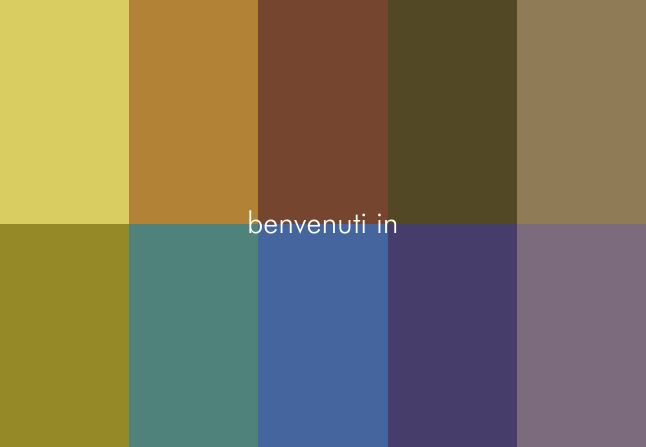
import math
import cairo

surface = cairo.ImageSurface(cairo.FORMAT_RGB24, 646, 447)
c = cairo.Context(surface)
options = cairo.FontOptions()
options.set_hint_metrics(cairo.HINT_METRICS_OFF)
options.set_hint_style(cairo.HINT_STYLE_NONE)
c.set_font_options(options)
c.set_miter_limit(4)
def C(code):
 c.set_source_rgb(*(v / 255 for v in bytes.fromhex(code[-6:])))
def F(family, size, italic, bold):
 c.select_font_face(family, cairo.FONT_SLANT_ITALIC if italic else cairo.FONT_SLANT_NORMAL, cairo.FONT_WEIGHT_BOLD if bold else cairo.FONT_WEIGHT_NORMAL)
 c.set_font_size(size)
def T(x, y, s):
 c.move_to(x, y)
 c.show_text(s)
def R(x, y, w, h):
 c.rectangle(x, y, w, h)
 c.fill()
C('d9cc61')
c.paint()
C('b28236')
R(129,0,129,224)
C('76452f')
R(258,0,130,224)
C('524826')
R(388,0,129,224)
C('8f7b55')
R(517,0,129,224)
C('948926')
R(0,224,129,223)
C('4e827b')
R(129,224,129,223)
C('44659d')
R(258,224,130,223)
C('463d6a')
R(388,224,129,223)
C('7c6b7c')
R(517,224,129,223)
F('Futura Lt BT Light',30,0,0)
C('ffffff')
T(247,233,'benvenuti in')
surface.write_to_png('o.png')
